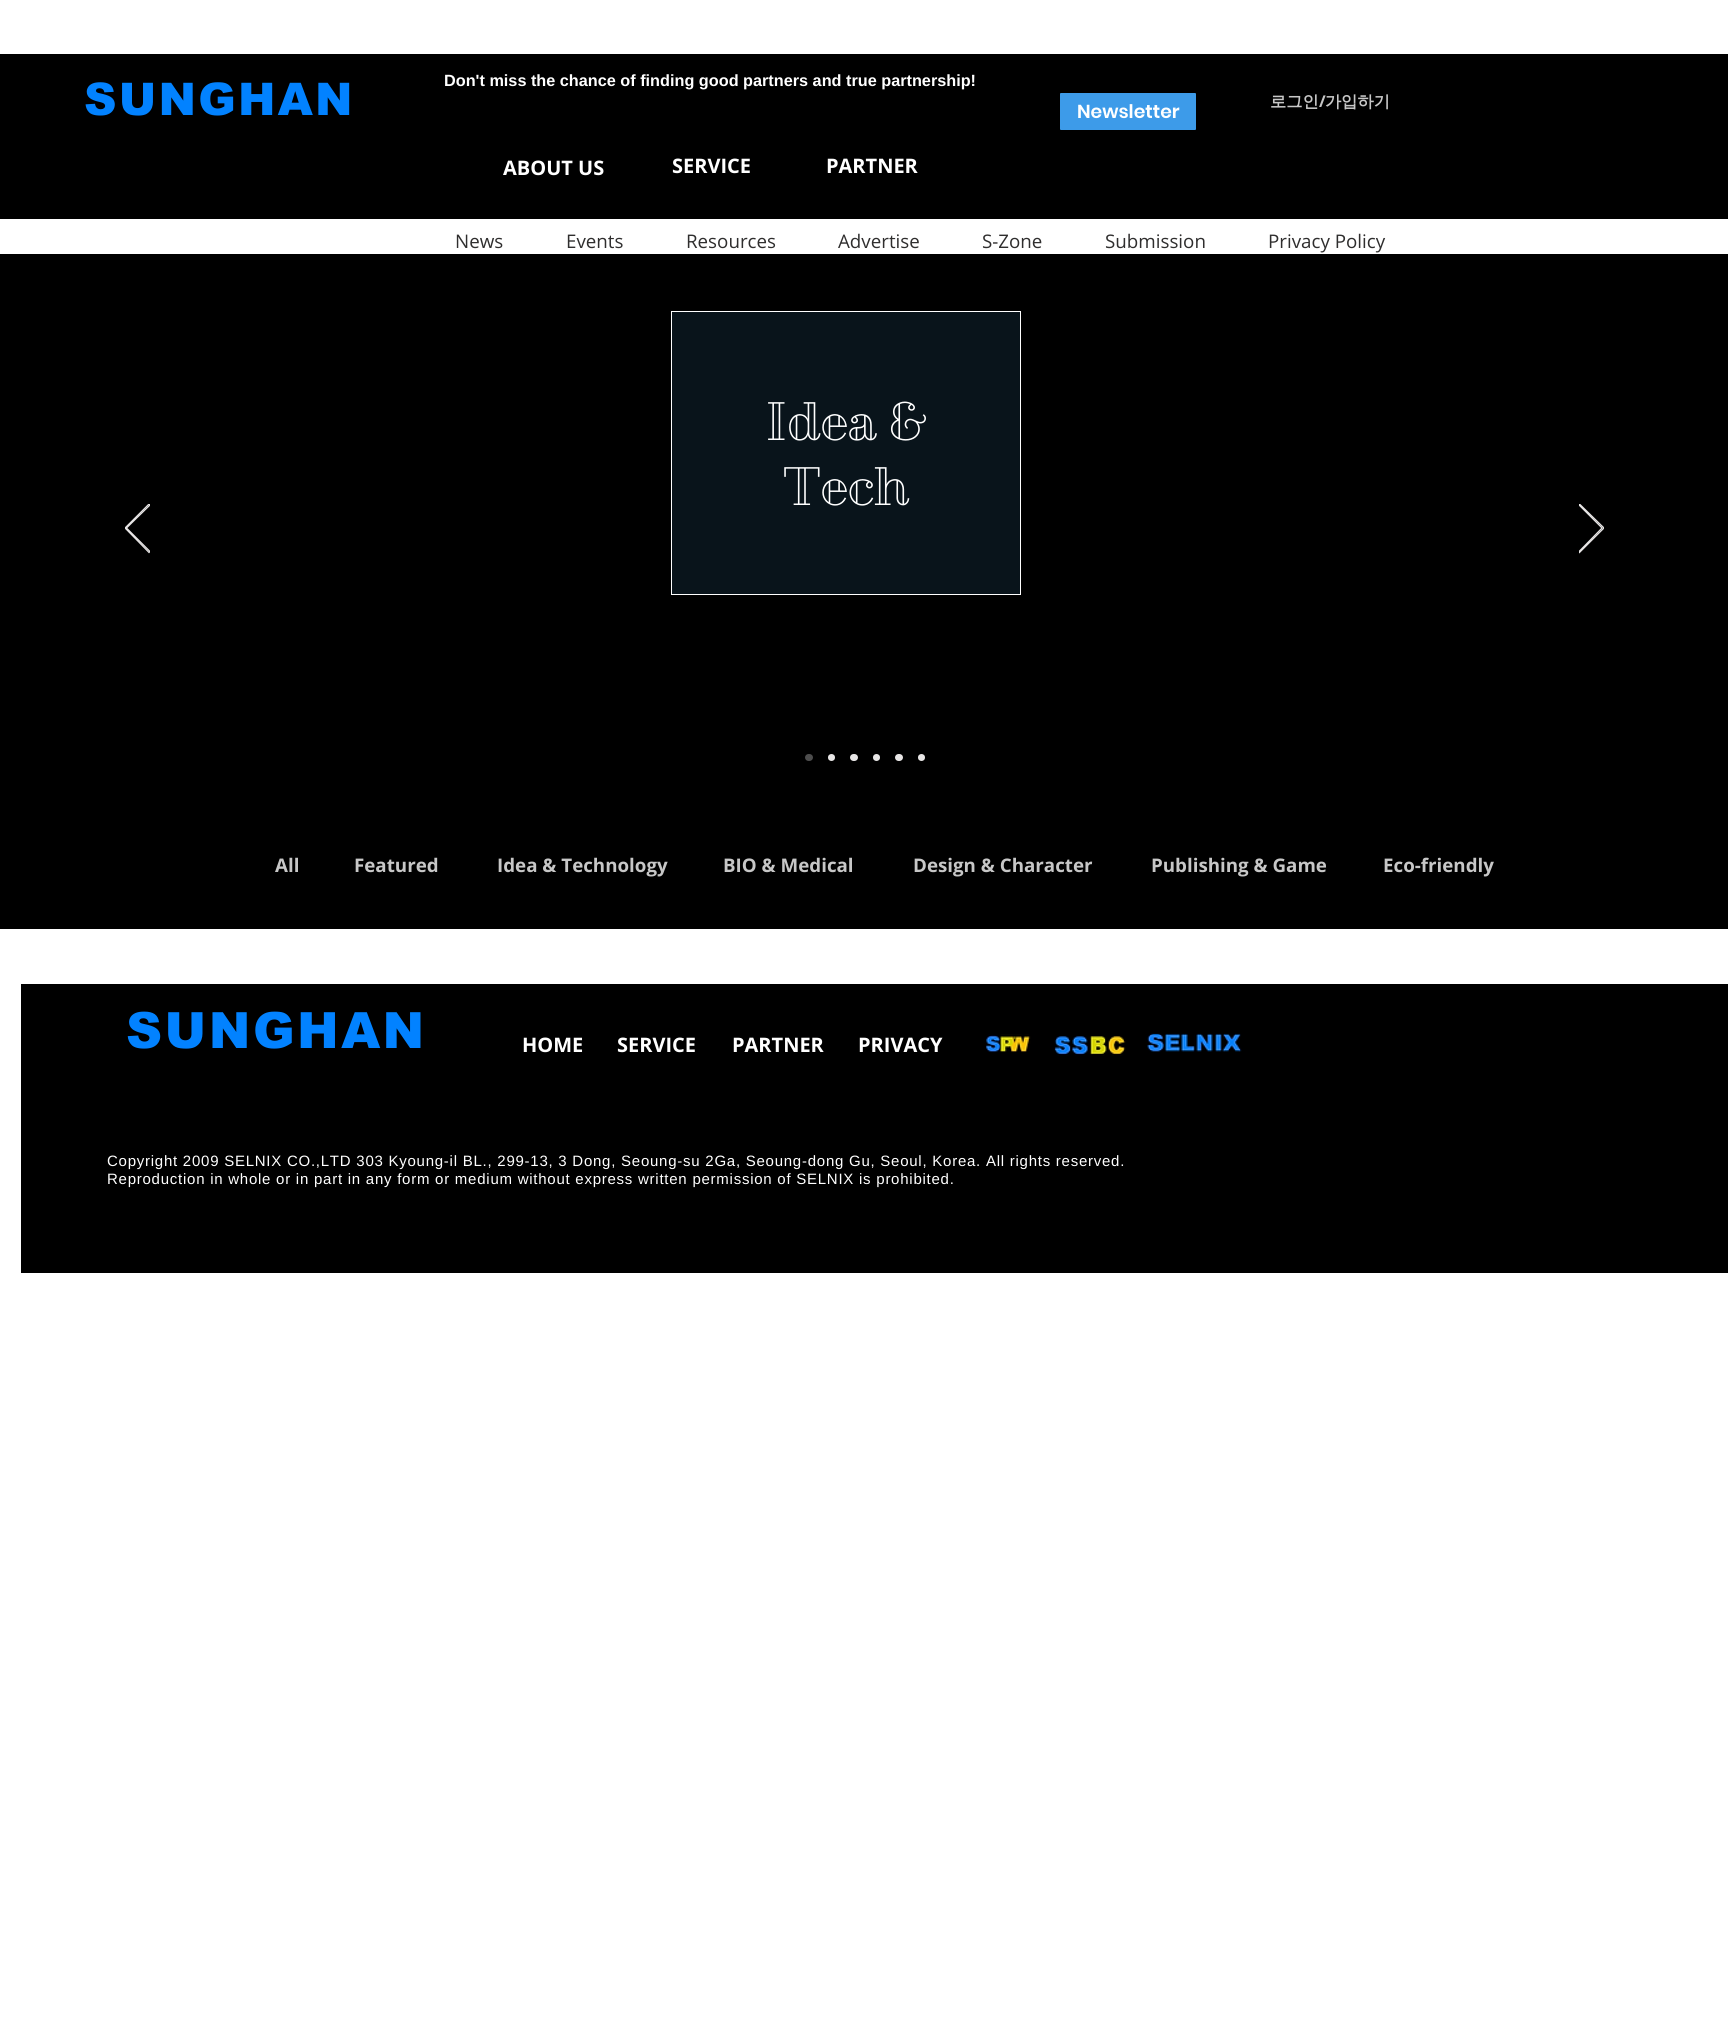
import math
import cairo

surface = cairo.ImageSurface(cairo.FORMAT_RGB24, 1728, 2026)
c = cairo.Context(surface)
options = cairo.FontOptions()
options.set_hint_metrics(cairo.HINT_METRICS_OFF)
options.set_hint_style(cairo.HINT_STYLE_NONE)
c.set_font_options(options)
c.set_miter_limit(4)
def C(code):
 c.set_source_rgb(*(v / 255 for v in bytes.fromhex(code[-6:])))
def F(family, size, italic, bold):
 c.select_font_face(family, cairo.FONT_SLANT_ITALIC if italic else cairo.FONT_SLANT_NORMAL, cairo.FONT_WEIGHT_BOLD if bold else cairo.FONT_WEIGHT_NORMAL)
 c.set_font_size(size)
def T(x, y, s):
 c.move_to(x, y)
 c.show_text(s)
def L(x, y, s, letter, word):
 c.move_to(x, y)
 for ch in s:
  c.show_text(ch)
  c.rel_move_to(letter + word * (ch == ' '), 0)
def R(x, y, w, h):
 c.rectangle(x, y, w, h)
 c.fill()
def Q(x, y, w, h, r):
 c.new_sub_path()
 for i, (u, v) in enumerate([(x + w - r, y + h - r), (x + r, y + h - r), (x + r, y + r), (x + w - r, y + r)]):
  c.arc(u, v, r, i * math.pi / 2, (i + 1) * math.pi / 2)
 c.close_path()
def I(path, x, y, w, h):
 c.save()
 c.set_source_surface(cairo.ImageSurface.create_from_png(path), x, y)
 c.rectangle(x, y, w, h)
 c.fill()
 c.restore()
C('ffffff')
c.paint()
C('000000')
R(0,54,1728,165)
F('arial Black',45,0,0)
C('0282ff')
L(84,115,'SUNGHAN',2.25,0)
F('Liberation Sans',16.25,0,1)
C('ffffff')
T(444,86,'Don\'t miss the chance of finding good partners and true partnership!')
F('WenQuanYi Zen Hei',16.25,0,1)
C('c7c7c7')
T(1270,107,'로그인')
F('Open Sans',16.25,0,1)
T(1319,107,'/')
F('WenQuanYi Zen Hei',16.25,0,1)
T(1325,107,'가입하기')
C('3d9be9')
Q(1060,93,136,37,1)
c.fill()
F('Poppins SemiBold',18.75,0,0)
C('ffffff')
T(1077,118,'Newsletter')
F('Open Sans',20,0,1)
T(503,175,'ABOUT US')
T(672,173,'SERVICE')
T(826,173,'PARTNER')
F('Open Sans',18.75,0,0)
C('2f2e2e')
T(455,248,'News')
T(566,248,'Events')
T(686,248,'Resources')
T(838,248,'Advertise')
T(982,248,'S-Zone')
T(1105,248,'Submission')
T(1268,248,'Privacy Policy')
C('000000')
R(0,254,1728,675)
C('09141b')
c.rectangle(671.5,311.5,349,283)
c.fill_preserve()
C('ffffff')
c.set_line_width(1)
c.stroke()
F('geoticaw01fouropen',50,0,1)
T(765,440,'Idea &')
T(783,505,'Tech')
c.save()
c.rectangle(125,504,25,50)
c.clip()
c.new_path()
c.move_to(149,552.5)
c.line_to(125,528)
c.line_to(149,504)
c.line_to(150,505)
c.line_to(126.5,528)
c.line_to(150,551.5)
c.close_path()
C('e8e6e6')
c.set_line_width(1.2)
c.stroke()
c.restore()
c.save()
c.rectangle(1579,504,25,50)
c.clip()
c.new_path()
c.move_to(1579.5,552.5)
c.line_to(1604,528)
c.line_to(1579.5,504)
c.line_to(1579,505)
c.line_to(1602,528)
c.line_to(1579,551.5)
c.close_path()
C('e8e6e6')
c.set_line_width(1.2)
c.stroke()
c.restore()
C('4d4d4d')
Q(805,754,8,7,3.5)
c.fill()
C('e8e6e6')
c.arc(831.5,757.5,3.5,0,2 * math.pi)
c.fill()
Q(850,754,8,7,3.5)
c.fill()
c.arc(876.5,757.5,3.5,0,2 * math.pi)
c.fill()
Q(895,754,8,7,3.5)
c.fill()
c.arc(921.5,757.5,3.5,0,2 * math.pi)
c.fill()
F('Open Sans',18.75,0,1)
C('c7c7c7')
T(275,872,'All')
T(354,872,'Featured')
T(497,872,'Idea & Technology')
T(723,872,'BIO & Medical')
T(913,872,'Design & Character')
T(1151,872,'Publishing & Game')
T(1383,872,'Eco-friendly')
C('000000')
R(21,984,1707,289)
F('arial Black',50,0,0)
C('0282ff')
L(126,1048,'SUNGHAN',2.5,0)
F('Open Sans',20,0,1)
C('ffffff')
T(522,1052,'HOME')
T(617,1052,'SERVICE')
T(732,1052,'PARTNER')
T(858,1052,'PRIVACY')
I('1.png',985,1034,46,19)
I('2.png',1054,1036,72,20)
I('3.png',1147,1033,95,19)
F('Liberation Sans',15,0,0)
L(107,1166,'Copyright 2009 SELNIX CO.,LTD 303 Kyoung-il BL., 299-13, 3 Dong, Seoung-su 2Ga, Seoung-dong Gu, Seoul, Korea. All rights reserved.',.75,0)
L(107,1184,'Reproduction in whole or in part in any form or medium without express written permission of SELNIX is prohibited.',.75,0)
surface.write_to_png('o.png')
